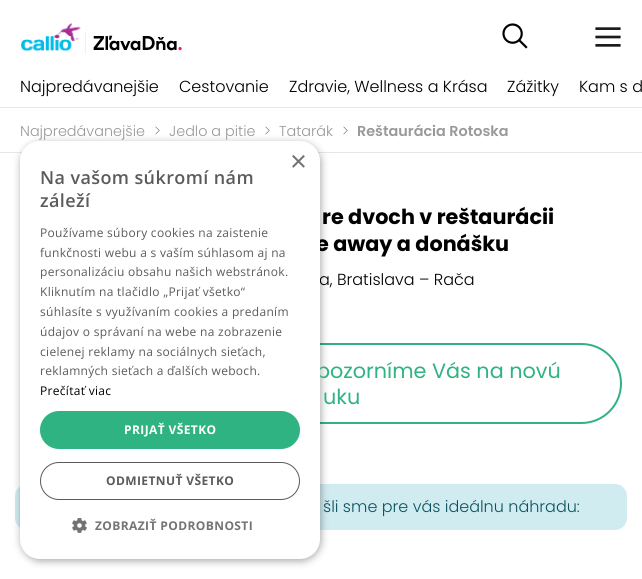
import math
import cairo

surface = cairo.ImageSurface(cairo.FORMAT_RGB24, 642, 579)
c = cairo.Context(surface)
options = cairo.FontOptions()
options.set_hint_metrics(cairo.HINT_METRICS_OFF)
options.set_hint_style(cairo.HINT_STYLE_NONE)
c.set_font_options(options)
c.set_miter_limit(4)
def C(code):
 c.set_source_rgb(*(v / 255 for v in bytes.fromhex(code[-6:])))
def F(family, size, italic, bold):
 c.select_font_face(family, cairo.FONT_SLANT_ITALIC if italic else cairo.FONT_SLANT_NORMAL, cairo.FONT_WEIGHT_BOLD if bold else cairo.FONT_WEIGHT_NORMAL)
 c.set_font_size(size)
def T(x, y, s):
 c.move_to(x, y)
 c.show_text(s)
def L(x, y, s, letter, word):
 c.move_to(x, y)
 for ch in s:
  c.show_text(ch)
  c.rel_move_to(letter + word * (ch == ' '), 0)
def R(x, y, w, h):
 c.rectangle(x, y, w, h)
 c.fill()
def Q(x, y, w, h, r):
 c.new_sub_path()
 for i, (u, v) in enumerate([(x + w - r, y + h - r), (x + r, y + h - r), (x + r, y + r), (x + w - r, y + r)]):
  c.arc(u, v, r, i * math.pi / 2, (i + 1) * math.pi / 2)
 c.close_path()
def S(x, y, w, h, r, blur, alpha):
 c.push_group_with_content(cairo.CONTENT_ALPHA)
 c.set_operator(cairo.OPERATOR_SOURCE)
 for i in range(15, -16, -2):
  e = blur * i / 6
  if min(w, h) + 2 * e > 0:
   c.set_source_rgba(0, 0, 0, alpha * math.erfc((i - 1) / 8.5) / 2)
   Q(x - e, y - e, w + 2 * e, h + 2 * e, max(0, min(r + e + blur * .6, min(w, h) / 2 + e)))
   c.fill()
 c.mask(c.pop_group())
def I(path, x, y, w, h):
 c.save()
 c.set_source_surface(cairo.ImageSurface.create_from_png(path), x, y)
 c.rectangle(x, y, w, h)
 c.fill()
 c.restore()
C('ffffff')
c.paint()
I('1.png',21,22,161,32)
I('2.png',502,23,26,26)
I('3.png',595,27,26,20)
F('Poppins Light',16,0,0)
C('000000')
T(20,92,'Najpredávanejšie')
T(179,92,'Cestovanie')
T(289,92,'Zdravie, Wellness a Krása')
T(507,92,'Zážitky')
T(579,92,'Kam s d')
C('e6e6e6')
R(0,107,642,1)
R(0,152,642,1)
F('Poppins Light',14.4,0,0)
C('999999')
T(20,136,'Najpredávanejšie')
I('4.png',155,126,5,9)
T(169,136,'Jedlo a pitie')
I('4.png',265,126,5,9)
T(279,136,'Tatarák')
I('4.png',343,126,5,9)
F('Poppins SemiBold',14.4,0,0)
T(357,136,'Reštaurácia Rotoska')
Q(21,344,600,79,39.5)
C('2fb382')
c.stroke()
C('d1ecf1')
Q(15,484,612,46,12)
c.fill()
C('000000')
S(21,143,300,418,20,4,.35)
F('Poppins',20.75,0,1)
C('000000')
T(316,251,'e away a donášku')
F('Poppins Light',16,0,0)
T(319,285,'a, Bratislava – Rača')
F('Poppins',20.75,0,0)
C('2fb382')
T(316,378,'pozorníme Vás na novú')
C('ffffff')
Q(20,141,300,418,20)
c.fill()
F('Liberation Sans',29,0,0)
C('747474')
T(290,171,'×')
F('Open Sans SemiBold',18,0,0)
C('5b5b5b')
L(40,184,'Na vašom súkromí nám',.4,0)
L(40,207,'záleží',.4,0)
F('Open Sans',12,0,0)
L(40,237,'Používame súbory cookies na zaistenie',.3,0)
L(40,257,'funkčnosti webu a s vaším súhlasom aj na',.3,0)
L(40,276,'personalizáciu obsahu našich webstránok.',.3,0)
L(40,296,'Kliknutím na tlačidlo „Prijať všetko“',.3,0)
L(40,316,'súhlasíte s využívaním cookies a predaním',.3,0)
L(40,336,'údajov o správaní na webe na zobrazenie',.3,0)
L(40,356,'cielenej reklamy na sociálnych sieťach,',.3,0)
L(40,375,'reklamných sieťach a ďalších weboch.',.3,0)
C('000000')
L(40,395,'Prečítať viac',.3,0)
C('2fb382')
Q(40,411,260,38,19)
c.fill()
F('Open Sans',12,0,1)
C('ffffff')
L(124,434,'PRIJAŤ VŠETKO',.4,0)
Q(40.5,462.5,259,37,18.5)
C('5b5b5b')
c.set_line_width(1)
c.stroke()
L(106,485,'ODMIETNUŤ VŠETKO',.4,0)
I('5.png',72,518,15,15)
C('747474')
L(95,530,'ZOBRAZIŤ PODROBNOSTI',.4,0)
F('Poppins',20.75,0,1)
C('000000')
T(322,224,'re dvoch v reštaurácii')
F('Poppins',20.75,0,0)
C('2fb382')
T(323,404,'uku')
F('Poppins Light',16,0,0)
C('0c5460')
T(323,512,'šli sme pre vás ideálnu náhradu:')
surface.write_to_png('o.png')
